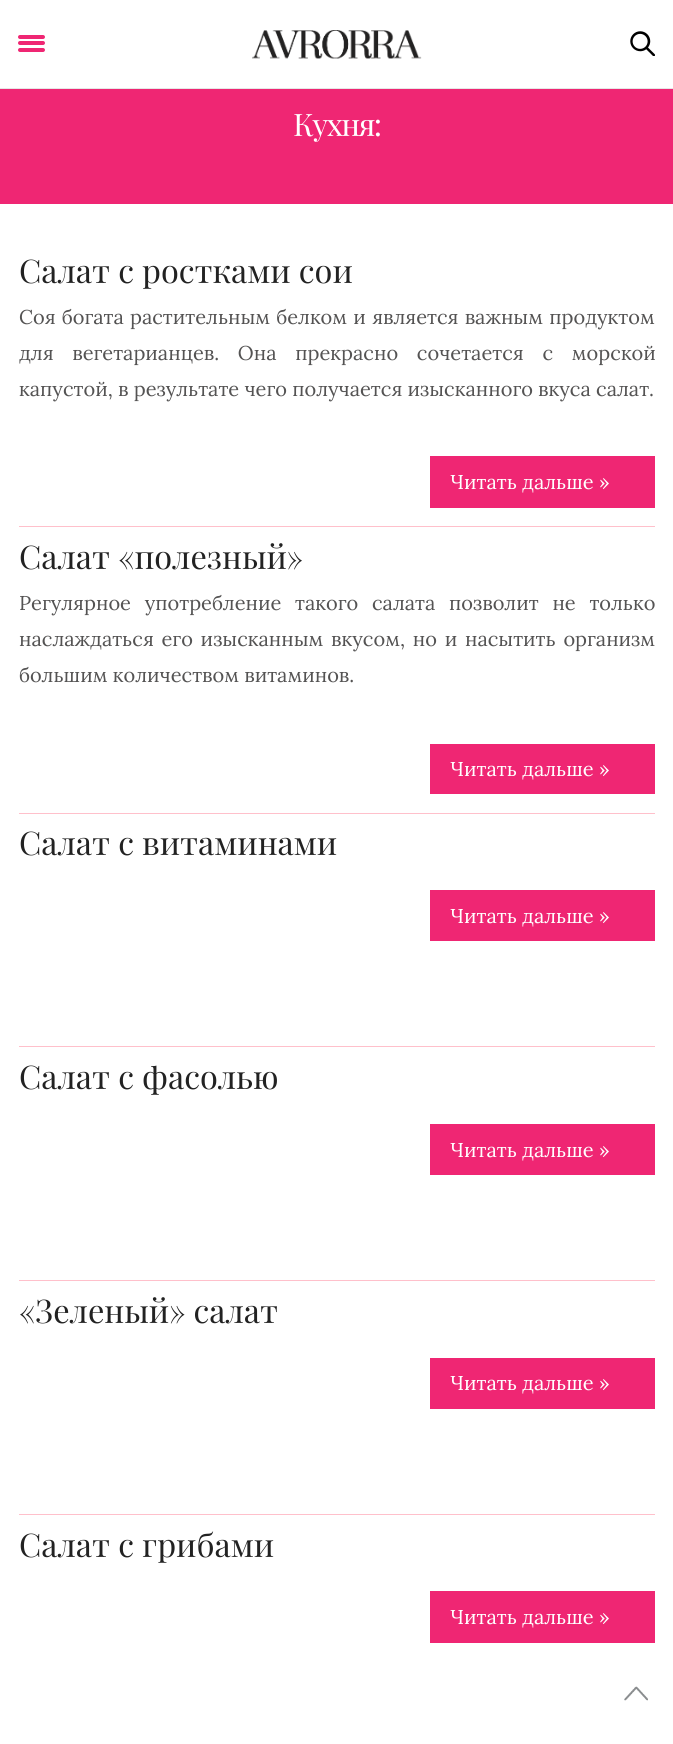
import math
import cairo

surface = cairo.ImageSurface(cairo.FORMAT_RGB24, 673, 1744)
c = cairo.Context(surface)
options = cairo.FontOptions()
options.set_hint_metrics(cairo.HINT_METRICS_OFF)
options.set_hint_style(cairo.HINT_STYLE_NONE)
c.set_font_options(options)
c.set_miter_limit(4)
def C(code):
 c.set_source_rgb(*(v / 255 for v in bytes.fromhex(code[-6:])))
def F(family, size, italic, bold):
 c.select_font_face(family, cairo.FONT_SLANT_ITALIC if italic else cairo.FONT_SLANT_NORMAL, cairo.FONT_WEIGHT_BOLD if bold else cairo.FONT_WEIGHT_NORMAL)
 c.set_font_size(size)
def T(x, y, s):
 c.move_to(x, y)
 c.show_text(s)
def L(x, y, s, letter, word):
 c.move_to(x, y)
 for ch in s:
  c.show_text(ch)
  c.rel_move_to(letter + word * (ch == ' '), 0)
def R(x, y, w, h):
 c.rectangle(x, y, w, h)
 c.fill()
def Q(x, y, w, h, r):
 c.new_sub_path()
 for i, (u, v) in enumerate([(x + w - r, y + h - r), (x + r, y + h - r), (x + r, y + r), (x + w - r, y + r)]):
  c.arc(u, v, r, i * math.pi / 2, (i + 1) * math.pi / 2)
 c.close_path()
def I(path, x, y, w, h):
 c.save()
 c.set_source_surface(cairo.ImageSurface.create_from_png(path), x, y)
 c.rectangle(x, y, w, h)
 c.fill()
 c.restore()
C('ffffff')
c.paint()
C('e6e6e6')
R(0,88,673,1)
C('ef2673')
Q(18,35,27,4,2)
c.fill()
Q(18,41,27,4,2)
c.fill()
Q(18,48,27,4,2)
c.fill()
I('1.png',252,30,170,29)
I('2.png',630,31,25,25)
R(0,89,673,115)
F('Playfair Display',31,0,0)
C('ffffff')
L(293,136,'Кухня:',-1.5,0)
C('ffc0cb')
R(19,526,636,1)
F('Playfair Display',32.5,0,0)
C('222222')
T(19,283,'Салат с ростками сои')
F('Lora',20,0,0)
C('545353')
L(19,324,'Соя богата растительным белком и является важным продуктом',0,1)
L(19,360,'для вегетарианцев. Она прекрасно сочетается с морской',0,13.5)
T(19,396,'капустой, в результате чего получается изысканного вкуса салат.')
C('ef2673')
R(430,456,225,52)
C('ffffff')
T(450,489,'Читать дальше »')
C('ffc0cb')
R(19,813,636,1)
F('Playfair Display',32.5,0,0)
C('222222')
T(19,569,'Салат «полезный»')
F('Lora',20,0,0)
C('545353')
L(19,610,'Регулярное употребление такого салата позволит не только',0,8.5)
L(19,646,'наслаждаться его изысканным вкусом, но и насытить организм',0,2.5)
T(19,682,'большим количеством витаминов.')
C('ef2673')
R(430,744,225,50)
C('ffffff')
T(450,776,'Читать дальше »')
C('ffc0cb')
R(19,1046,636,1)
F('Playfair Display',32.5,0,0)
C('222222')
T(19,855,'Салат с витаминами')
C('ef2673')
R(430,890,225,51)
F('Lora',20,0,0)
C('ffffff')
T(450,923,'Читать дальше »')
C('ffc0cb')
R(19,1280,636,1)
F('Playfair Display',32.5,0,0)
C('222222')
T(19,1089,'Салат с фасолью')
C('ef2673')
R(430,1124,225,51)
F('Lora',20,0,0)
C('ffffff')
T(450,1157,'Читать дальше »')
C('ffc0cb')
R(19,1514,636,1)
F('Playfair Display',32.5,0,0)
C('222222')
T(19,1323,'«Зеленый» салат')
C('ef2673')
R(430,1358,225,51)
F('Lora',20,0,0)
C('ffffff')
T(450,1390,'Читать дальше »')
F('Playfair Display',32.5,0,0)
C('222222')
T(19,1557,'Салат с грибами')
C('ef2673')
R(430,1591,225,52)
F('Lora',20,0,0)
C('ffffff')
T(450,1624,'Читать дальше »')
I('3.png',624,1686,24,15)
surface.write_to_png('o.png')
